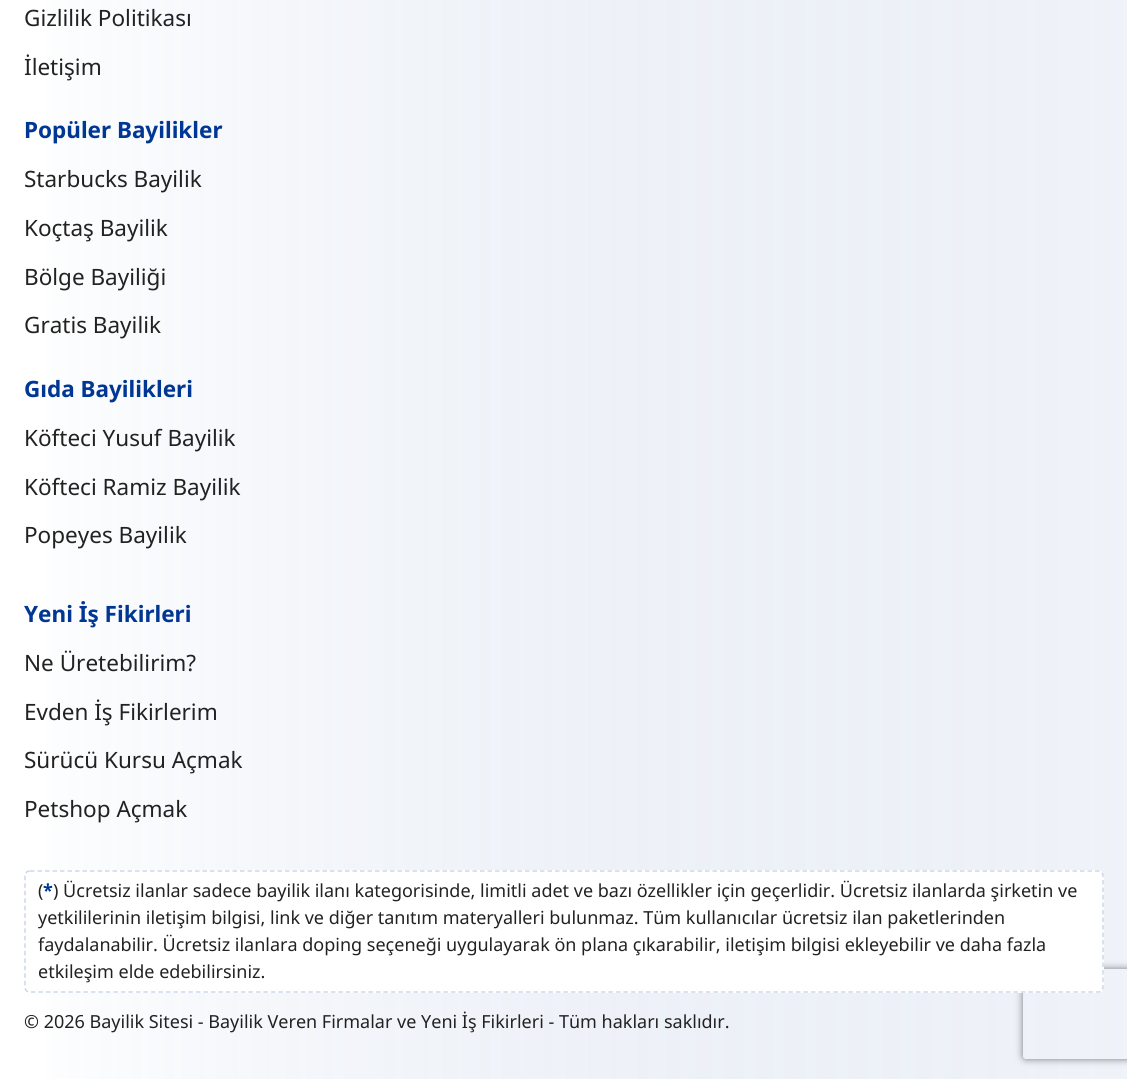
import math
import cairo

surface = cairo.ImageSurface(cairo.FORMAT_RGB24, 1127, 1079)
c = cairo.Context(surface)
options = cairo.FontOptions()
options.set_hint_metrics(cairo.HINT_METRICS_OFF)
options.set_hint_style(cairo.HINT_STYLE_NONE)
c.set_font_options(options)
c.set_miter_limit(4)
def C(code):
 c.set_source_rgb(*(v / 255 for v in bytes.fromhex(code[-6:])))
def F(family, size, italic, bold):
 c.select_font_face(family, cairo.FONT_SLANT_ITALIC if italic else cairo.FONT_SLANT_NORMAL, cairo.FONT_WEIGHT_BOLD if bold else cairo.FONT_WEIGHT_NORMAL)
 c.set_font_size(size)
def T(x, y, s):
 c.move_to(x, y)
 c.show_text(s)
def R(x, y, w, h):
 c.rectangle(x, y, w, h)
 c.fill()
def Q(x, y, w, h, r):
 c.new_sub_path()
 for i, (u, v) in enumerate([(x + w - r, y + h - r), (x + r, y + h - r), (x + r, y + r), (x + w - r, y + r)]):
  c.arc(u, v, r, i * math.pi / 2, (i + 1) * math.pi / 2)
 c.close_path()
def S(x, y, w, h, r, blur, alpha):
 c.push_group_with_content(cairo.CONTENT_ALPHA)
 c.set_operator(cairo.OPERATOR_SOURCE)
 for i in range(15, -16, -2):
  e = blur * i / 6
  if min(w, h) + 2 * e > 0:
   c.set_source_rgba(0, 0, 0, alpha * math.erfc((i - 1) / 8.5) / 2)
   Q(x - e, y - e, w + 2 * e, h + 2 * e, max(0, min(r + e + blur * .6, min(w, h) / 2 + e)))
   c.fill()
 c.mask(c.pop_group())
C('ffffff')
c.paint()
c.save()
c.set_fill_rule(cairo.FILL_RULE_EVEN_ODD)
c.new_path()
c.move_to(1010,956)
c.line_to(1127,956)
c.line_to(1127,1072)
c.line_to(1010,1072)
c.close_path()
c.move_to(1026,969)
c.line_to(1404,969)
c.curve_to(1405.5,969,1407,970.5,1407,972)
c.line_to(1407,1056)
c.curve_to(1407,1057.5,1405.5,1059,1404,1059)
c.line_to(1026,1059)
c.curve_to(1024.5,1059,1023,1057.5,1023,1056)
c.line_to(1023,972)
c.curve_to(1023,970.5,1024.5,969,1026,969)
c.close_path()
c.clip()
C('808080')
S(1023,969,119,90,3,4,1)
c.restore()
gradient = cairo.LinearGradient(0,301,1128,301)
gradient.add_color_stop_rgba(0,1,1,1,.2)
gradient.add_color_stop_rgba(1,0,0.212,0.58,.06)
c.set_source(gradient)
R(46,0,1081,1079)
F('Noto Sans',22.5,0,0)
C('222222')
T(24,26,'Gizlilik Politikası')
T(24,75,'İletişim')
F('Noto Sans',22.5,0,1)
C('003795')
T(24,138,'Popüler Bayilikler')
F('Noto Sans',22.5,0,0)
C('222222')
T(24,187,'Starbucks Bayilik')
T(24,236,'Koçtaş Bayilik')
T(24,285,'Bölge Bayiliği')
T(24,333,'Gratis Bayilik')
F('Noto Sans',22.5,0,1)
C('003795')
T(24,397,'Gıda Bayilikleri')
F('Noto Sans',22.5,0,0)
C('222222')
T(24,446,'Köfteci Yusuf Bayilik')
T(24,495,'Köfteci Ramiz Bayilik')
T(24,543,'Popeyes Bayilik')
F('Noto Sans',22.5,0,1)
C('003795')
T(24,622,'Yeni İş Fikirleri')
F('Noto Sans',22.5,0,0)
C('222222')
T(24,671,'Ne Üretebilirim?')
T(24,720,'Evden İş Fikirlerim')
T(24,768,'Sürücü Kursu Açmak')
T(24,817,'Petshop Açmak')
C('ffffff')
Q(24,870,1080,123,6)
c.fill()
c.new_path()
c.move_to(30,871)
c.line_to(1098,871)
c.curve_to(1101,871,1103,873,1103,876)
c.line_to(1103,987)
c.curve_to(1103,990,1101,992,1098,992)
c.line_to(30,992)
c.curve_to(27,992,25,990,25,987)
c.line_to(25,876)
c.curve_to(25,873,27,871,30,871)
c.close_path()
c.set_source_rgba(0,0.212,0.58,0.2)
c.set_line_width(1.5)
c.set_dash([4.5,3])
c.stroke()
F('Noto Sans',18,0,0)
C('222222')
T(38,897,'(')
F('Noto Sans',18,0,1)
C('003795')
T(43,897,'*')
F('Noto Sans',18,0,0)
C('222222')
T(53,897,') Ücretsiz ilanlar sadece bayilik ilanı kategorisinde, limitli adet ve bazı özellikler için geçerlidir. Ücretsiz ilanlarda şirketin ve')
T(38,924,'yetkililerinin iletişim bilgisi, link ve diğer tanıtım materyalleri bulunmaz. Tüm kullanıcılar ücretsiz ilan paketlerinden')
T(38,951,'faydalanabilir. Ücretsiz ilanlara doping seçeneği uygulayarak ön plana çıkarabilir, iletişim bilgisi ekleyebilir ve daha fazla')
T(38,978,'etkileşim elde edebilirsiniz.')
T(24,1028,'© 2026 Bayilik Sitesi - Bayilik Veren Firmalar ve Yeni İş Fikirleri - Tüm hakları saklıdır.')
surface.write_to_png('o.png')
